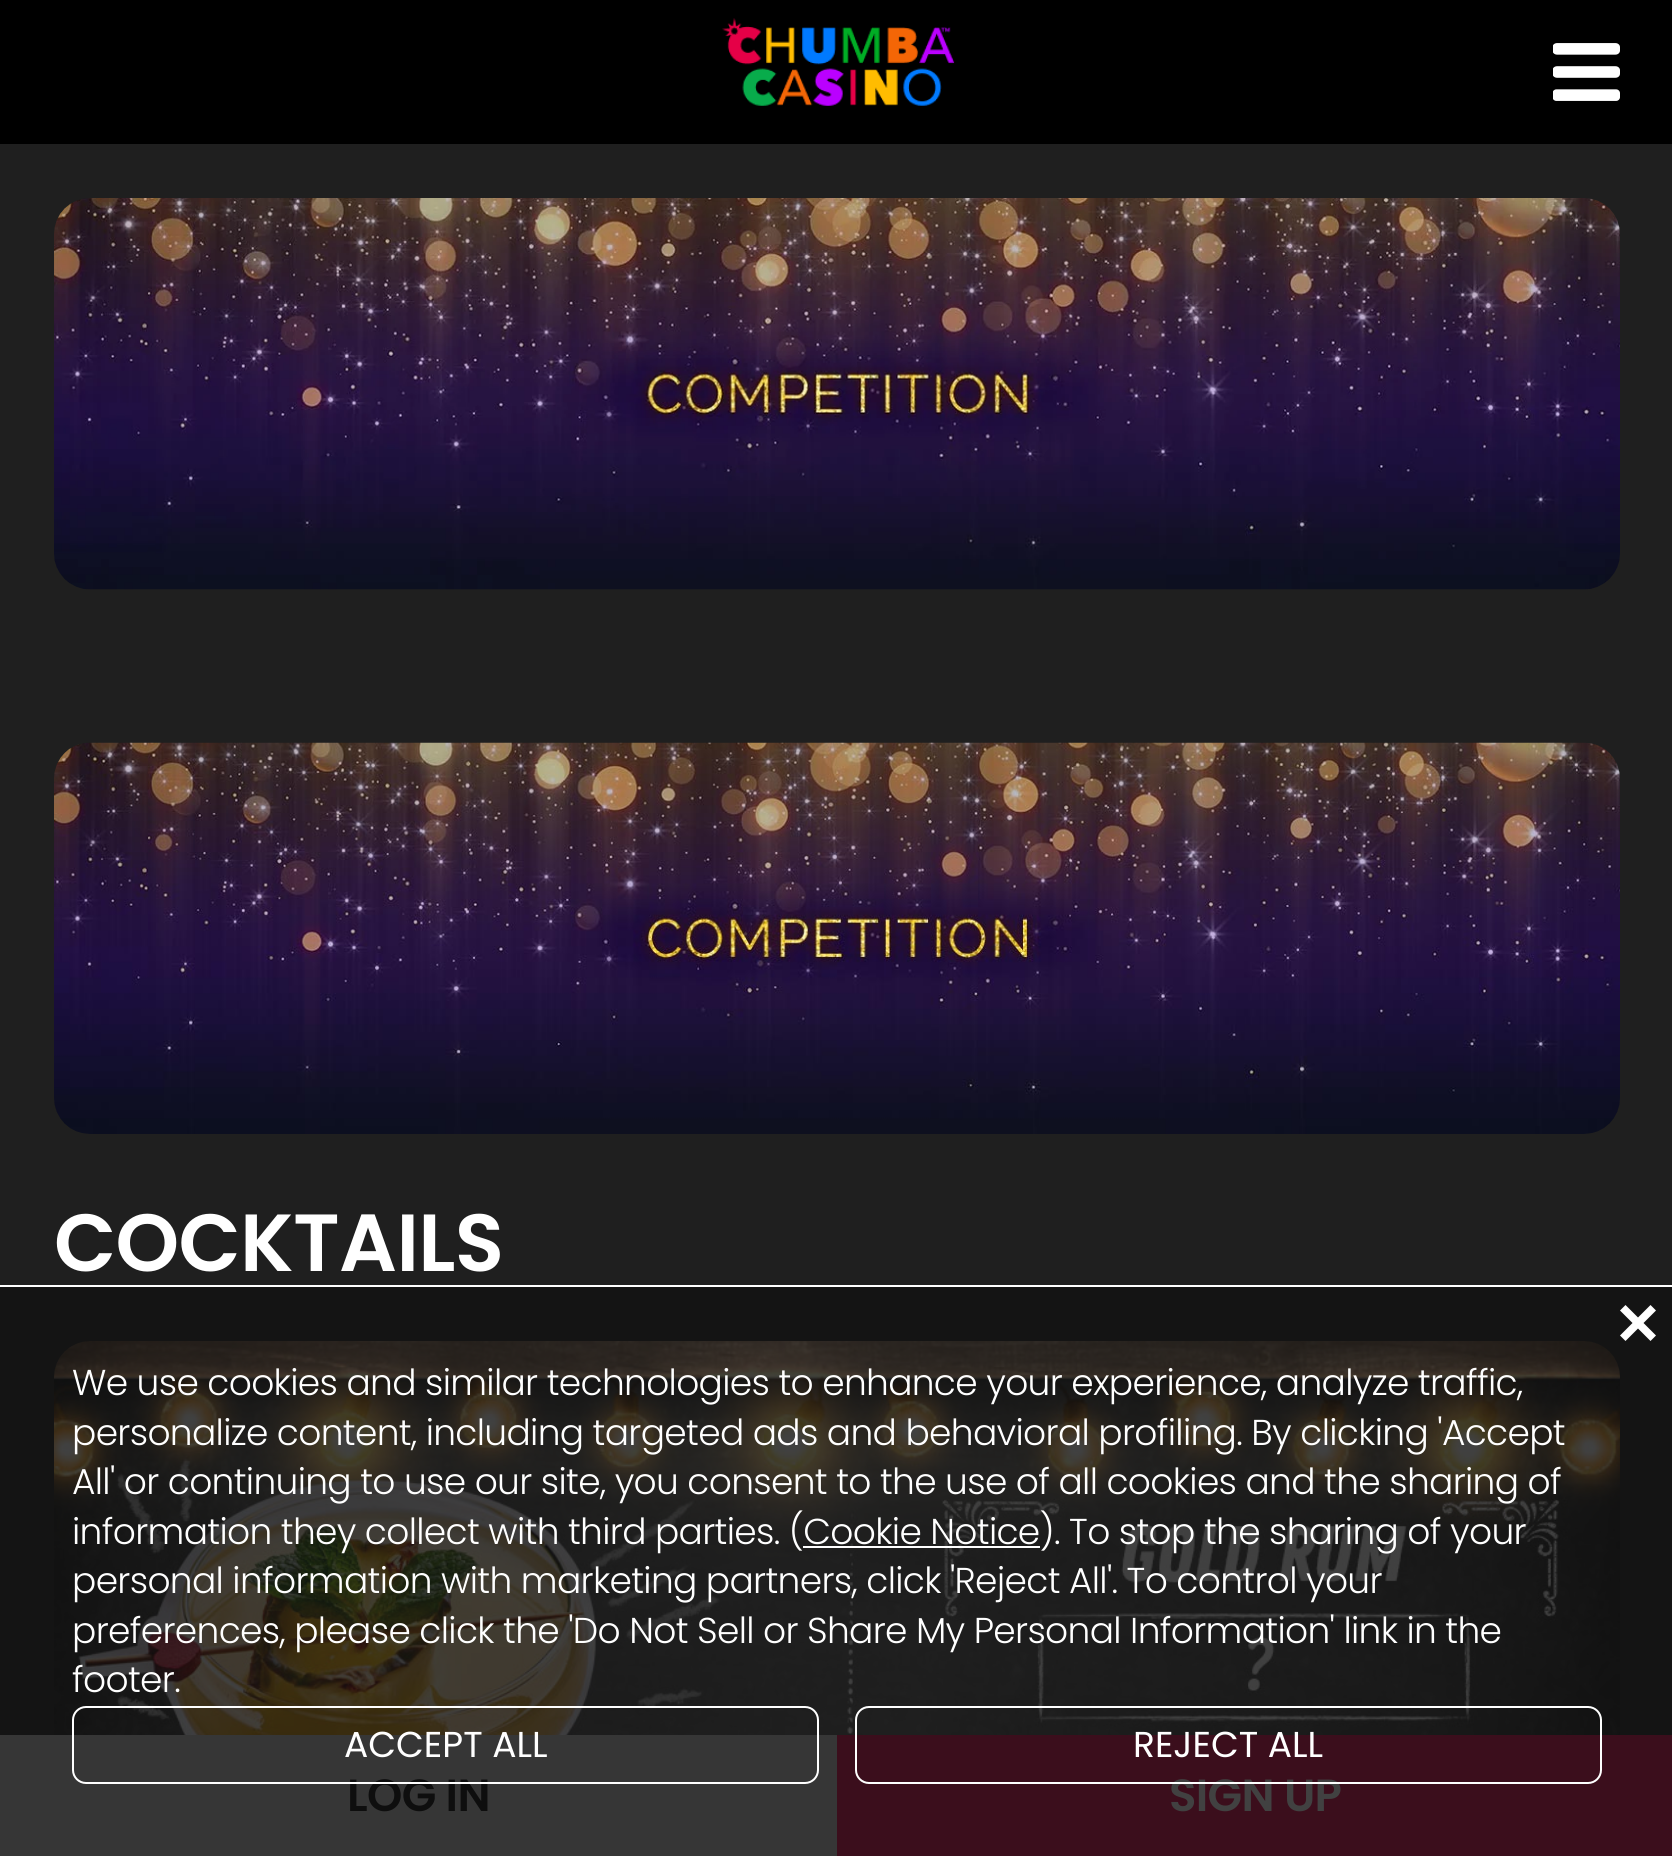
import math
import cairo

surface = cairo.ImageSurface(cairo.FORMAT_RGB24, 1672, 1856)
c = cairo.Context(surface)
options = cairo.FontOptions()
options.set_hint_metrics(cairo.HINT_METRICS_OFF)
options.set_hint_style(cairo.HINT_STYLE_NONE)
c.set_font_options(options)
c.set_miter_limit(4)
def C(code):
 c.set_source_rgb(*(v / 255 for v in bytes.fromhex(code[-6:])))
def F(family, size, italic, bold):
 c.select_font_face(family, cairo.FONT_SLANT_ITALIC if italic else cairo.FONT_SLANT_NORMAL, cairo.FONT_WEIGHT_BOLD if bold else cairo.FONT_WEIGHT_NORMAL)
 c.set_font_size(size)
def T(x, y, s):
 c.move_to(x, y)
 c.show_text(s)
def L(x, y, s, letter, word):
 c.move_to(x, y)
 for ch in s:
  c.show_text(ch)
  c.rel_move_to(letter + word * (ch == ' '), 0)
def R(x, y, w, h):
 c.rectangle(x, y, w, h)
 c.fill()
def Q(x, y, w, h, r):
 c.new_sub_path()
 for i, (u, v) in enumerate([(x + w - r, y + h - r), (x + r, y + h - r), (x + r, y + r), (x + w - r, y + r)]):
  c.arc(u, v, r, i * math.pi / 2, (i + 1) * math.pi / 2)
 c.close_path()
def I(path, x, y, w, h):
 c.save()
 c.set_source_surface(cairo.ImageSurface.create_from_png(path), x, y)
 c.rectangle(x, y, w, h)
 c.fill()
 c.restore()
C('1f1f1f')
c.paint()
C('141414')
R(0,1287,1672,448)
I('1.png',54,198,1566,392)
I('2.png',54,742,1566,392)
F('Poppins SemiBold',81,0,0)
C('ffffff')
L(54,1271,'COCKTAILS',-.67,0)
I('3.png',54,1341,1566,394)
R(0,1285,1672,2)
c.new_path()
c.move_to(1656,1335.5)
c.line_to(1643.5,1323)
c.line_to(1656,1310.5)
c.line_to(1650.5,1305)
c.line_to(1638,1317.5)
c.line_to(1625.5,1305)
c.line_to(1620,1310.5)
c.line_to(1632.5,1323)
c.line_to(1620,1335.5)
c.line_to(1625.5,1341)
c.line_to(1638,1328.5)
c.line_to(1650.5,1341)
c.close_path()
c.fill()
F('Poppins Light',36,0,0)
L(72,1395,'We use cookies and similar technologies to enhance your experience, analyze traffic,',-.67,0)
L(72,1445,'personalize content, including targeted ads and behavioral profiling. By clicking \'Accept',-.67,0)
L(72,1494,'All\' or continuing to use our site, you consent to the use of all cookies and the sharing of',-.67,0)
L(72,1544,'information they collect with third parties. (Cookie Notice). To stop the sharing of your',-.67,0)
R(803,1546,237,2)
L(72,1593,'personal information with marketing partners, click \'Reject All\'. To control your',-.67,0)
L(72,1643,'preferences, please click the \'Do Not Sell or Share My Personal Information\' link in the',-.67,0)
L(72,1692,'footer.',-.67,0)
C('363636')
R(0,1735,837,121)
F('Poppins SemiBold',45,0,0)
C('0e0e0e')
L(347,1811,'LOG IN',-.67,0)
Q(73,1707,745,76,13)
C('ffffff')
c.stroke()
F('Poppins',36,0,0)
T(344,1757,'ACCEPT ALL')
C('3b0e1c')
R(837,1735,835,121)
F('Poppins SemiBold',45,0,0)
C('414141')
L(1169,1811,'SIGN UP',-.67,0)
Q(856,1707,745,76,13)
C('ffffff')
c.stroke()
F('Poppins',36,0,0)
T(1133,1757,'REJECT ALL')
C('000000')
R(0,0,1672,144)
I('4.png',722,18,233,88)
I('5.png',1553,43,67,58)
surface.write_to_png('o.png')
